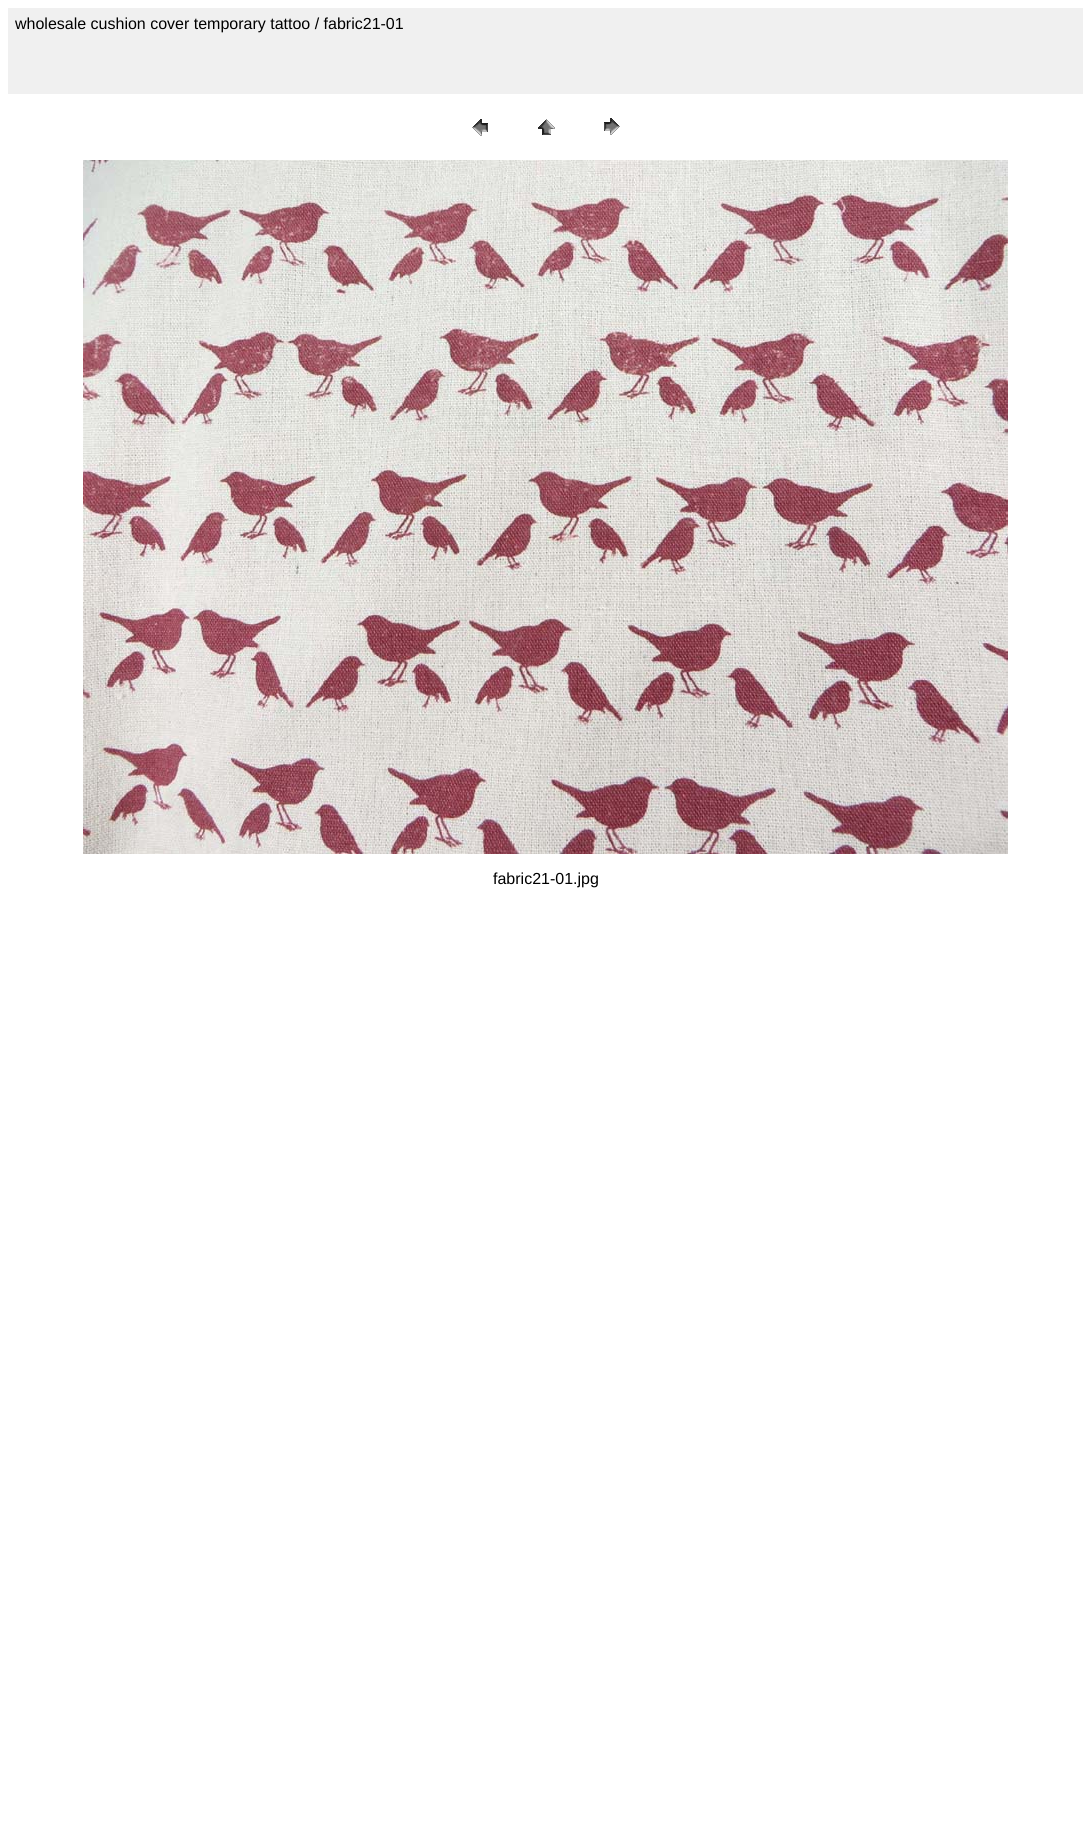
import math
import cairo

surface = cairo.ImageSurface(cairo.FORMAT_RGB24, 1091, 1828)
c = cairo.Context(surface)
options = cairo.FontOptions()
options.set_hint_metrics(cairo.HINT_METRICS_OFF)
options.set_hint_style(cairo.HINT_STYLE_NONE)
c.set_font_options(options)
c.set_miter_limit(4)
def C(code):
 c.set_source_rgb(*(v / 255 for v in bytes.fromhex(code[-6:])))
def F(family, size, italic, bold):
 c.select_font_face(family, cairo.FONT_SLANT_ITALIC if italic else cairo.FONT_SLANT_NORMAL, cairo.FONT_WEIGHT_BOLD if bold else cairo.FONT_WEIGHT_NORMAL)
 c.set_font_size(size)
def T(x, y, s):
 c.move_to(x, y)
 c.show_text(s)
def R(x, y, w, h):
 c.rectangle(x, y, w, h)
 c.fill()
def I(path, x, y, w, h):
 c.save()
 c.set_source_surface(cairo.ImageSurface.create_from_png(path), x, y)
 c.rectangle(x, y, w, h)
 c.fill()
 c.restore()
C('ffffff')
c.paint()
C('f0f0f0')
R(8,8,1075,86)
F('Liberation Sans',16,0,0)
C('000000')
T(15,29,'wholesale cushion cover temporary tattoo / fabric21-01')
I('1.png',472,119,16,17)
I('2.png',538,119,17,16)
I('3.png',604,118,16,17)
I('4.png',83,160,925,694)
T(493,884,'fabric21-01.jpg')
surface.write_to_png('o.png')
